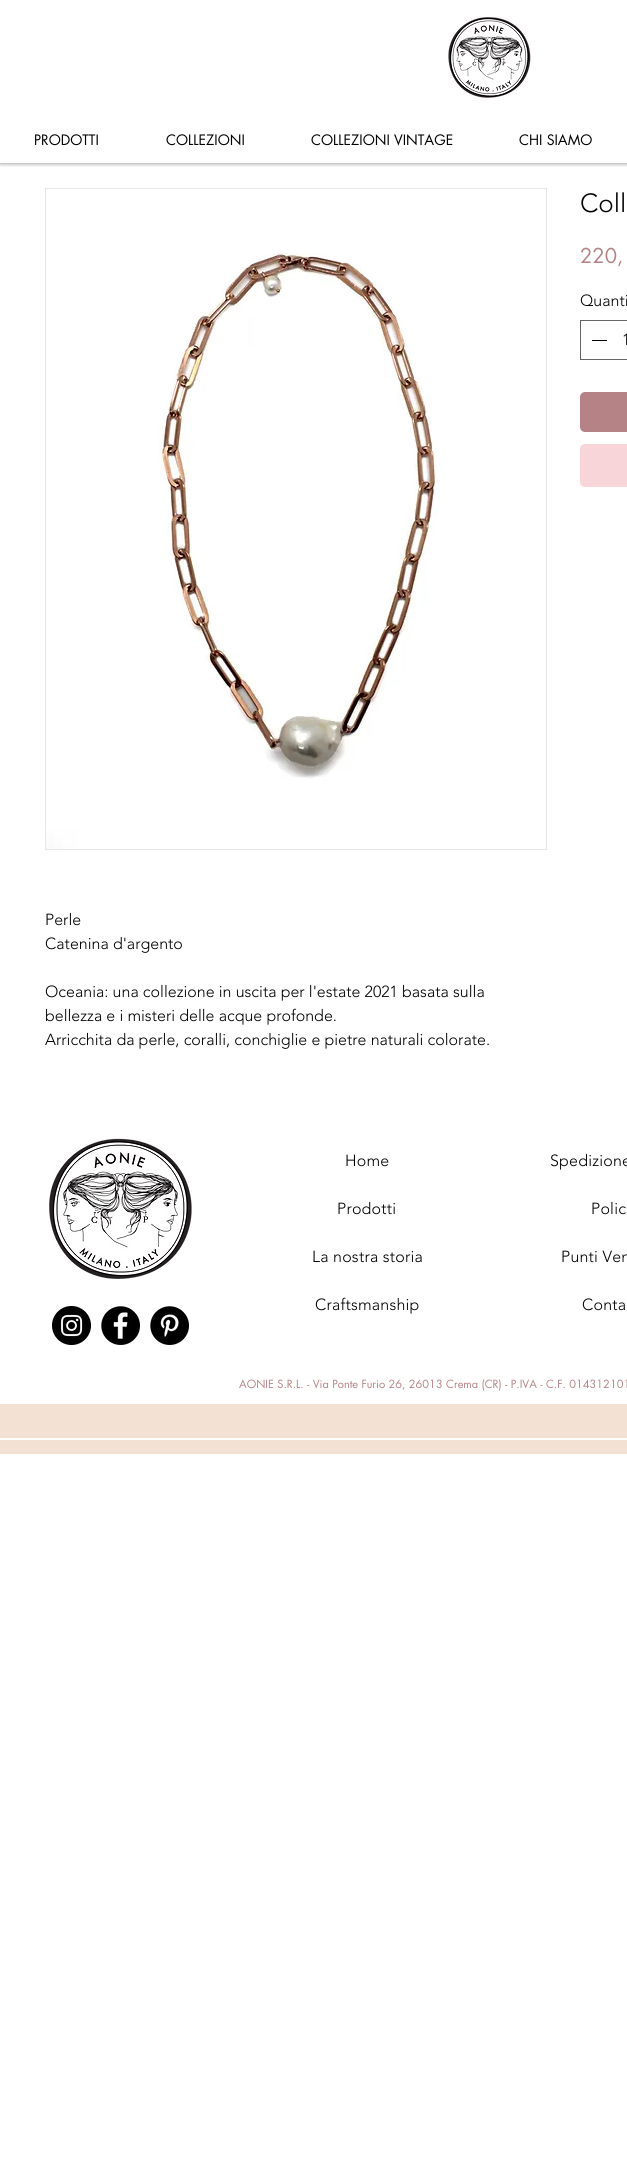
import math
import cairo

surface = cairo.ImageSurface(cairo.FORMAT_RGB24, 627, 2157)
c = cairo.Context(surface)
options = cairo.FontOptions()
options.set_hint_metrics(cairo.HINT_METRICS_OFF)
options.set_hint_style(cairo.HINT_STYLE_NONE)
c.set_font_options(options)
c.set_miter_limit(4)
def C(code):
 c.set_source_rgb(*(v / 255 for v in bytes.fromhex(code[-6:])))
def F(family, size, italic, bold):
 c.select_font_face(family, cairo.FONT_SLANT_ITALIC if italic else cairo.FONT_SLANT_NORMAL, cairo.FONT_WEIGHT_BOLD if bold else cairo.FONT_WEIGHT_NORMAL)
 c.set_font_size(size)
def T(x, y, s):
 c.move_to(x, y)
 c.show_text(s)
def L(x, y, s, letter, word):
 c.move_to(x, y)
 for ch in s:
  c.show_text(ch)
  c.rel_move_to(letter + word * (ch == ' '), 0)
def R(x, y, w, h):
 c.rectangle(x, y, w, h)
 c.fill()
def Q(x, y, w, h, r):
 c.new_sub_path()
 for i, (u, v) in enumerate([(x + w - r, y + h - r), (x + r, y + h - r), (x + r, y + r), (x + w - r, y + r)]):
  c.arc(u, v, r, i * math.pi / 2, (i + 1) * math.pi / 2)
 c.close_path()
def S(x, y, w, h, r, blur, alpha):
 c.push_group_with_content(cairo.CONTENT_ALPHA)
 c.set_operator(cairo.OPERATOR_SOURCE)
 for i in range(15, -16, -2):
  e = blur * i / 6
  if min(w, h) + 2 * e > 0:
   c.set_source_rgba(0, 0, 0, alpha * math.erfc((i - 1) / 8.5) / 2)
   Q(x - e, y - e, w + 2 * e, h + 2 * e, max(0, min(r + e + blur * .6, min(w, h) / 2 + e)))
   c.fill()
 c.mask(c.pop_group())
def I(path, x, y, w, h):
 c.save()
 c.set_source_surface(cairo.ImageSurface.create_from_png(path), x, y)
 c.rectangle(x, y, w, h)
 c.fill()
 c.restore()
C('ffffff')
c.paint()
c.save()
c.rectangle(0,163,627,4)
c.clip()
C('000000')
S(0,0,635,163,0,2.5,.5)
c.restore()
I('1.png',448,17,83,81)
F('futura',14,0,0)
C('000000')
T(34,145,'PRODOTTI')
T(166,145,'COLLEZIONI')
T(311,145,'COLLEZIONI VINTAGE')
T(519,145,'CHI SIAMO')
F('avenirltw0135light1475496 Light',26,0,0)
T(580,212,'Coll')
F('futura',20,0,0)
C('b58286')
T(580,263,'220,')
F('avenirltw0135light1475496 Light',16,0,0)
C('000000')
T(580,306,'Quanti')
c.rectangle(580.5,320.5,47,39)
C('666666')
c.set_line_width(1)
c.stroke()
C('000000')
R(592,340,15,1)
T(622,345,'1')
C('b58286')
Q(580,392,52,40,5)
c.fill()
C('f8d5d8')
Q(580,444,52,43,5)
c.fill()
c.rectangle(45.5,188.5,501,661)
C('e8e6e6')
c.stroke()
I('2.png',46,253,392,596)
C('000000')
T(45,925,'Perle')
T(45,949,'Catenina d\'argento')
T(45,997,'Oceania: una collezione in uscita per l\'estate 2021 basata sulla')
T(45,1021,'bellezza e i misteri delle acque profonde.')
T(45,1045,'Arricchita da perle, coralli, conchiglie e pietre naturali colorate.')
I('3.png',49,1138,143,141)
I('4.png',52,1306,39,39)
I('5.png',101,1306,39,39)
I('6.png',150,1306,39,39)
L(345,1166,'Home',.2,0)
L(337,1214,'Prodotti',.2,0)
L(312,1262,'La nostra storia',.2,0)
L(315,1310,'Craftsmanship',.2,0)
L(550,1166,'Spedizione',.2,0)
L(591,1214,'Polic',.2,0)
L(561,1262,'Punti Ven',.2,0)
L(582,1310,'Conta',.2,0)
F('futura',11,0,0)
C('b58286')
T(239,1388,'AONIE S.R.L. - Via Ponte Furio 26, 26013 Crema (CR) - P.IVA - C.F. 014312101')
C('f3e2d3')
R(0,1404,627,50)
C('ffffff')
R(0,1438,627,2)
surface.write_to_png('o.png')
